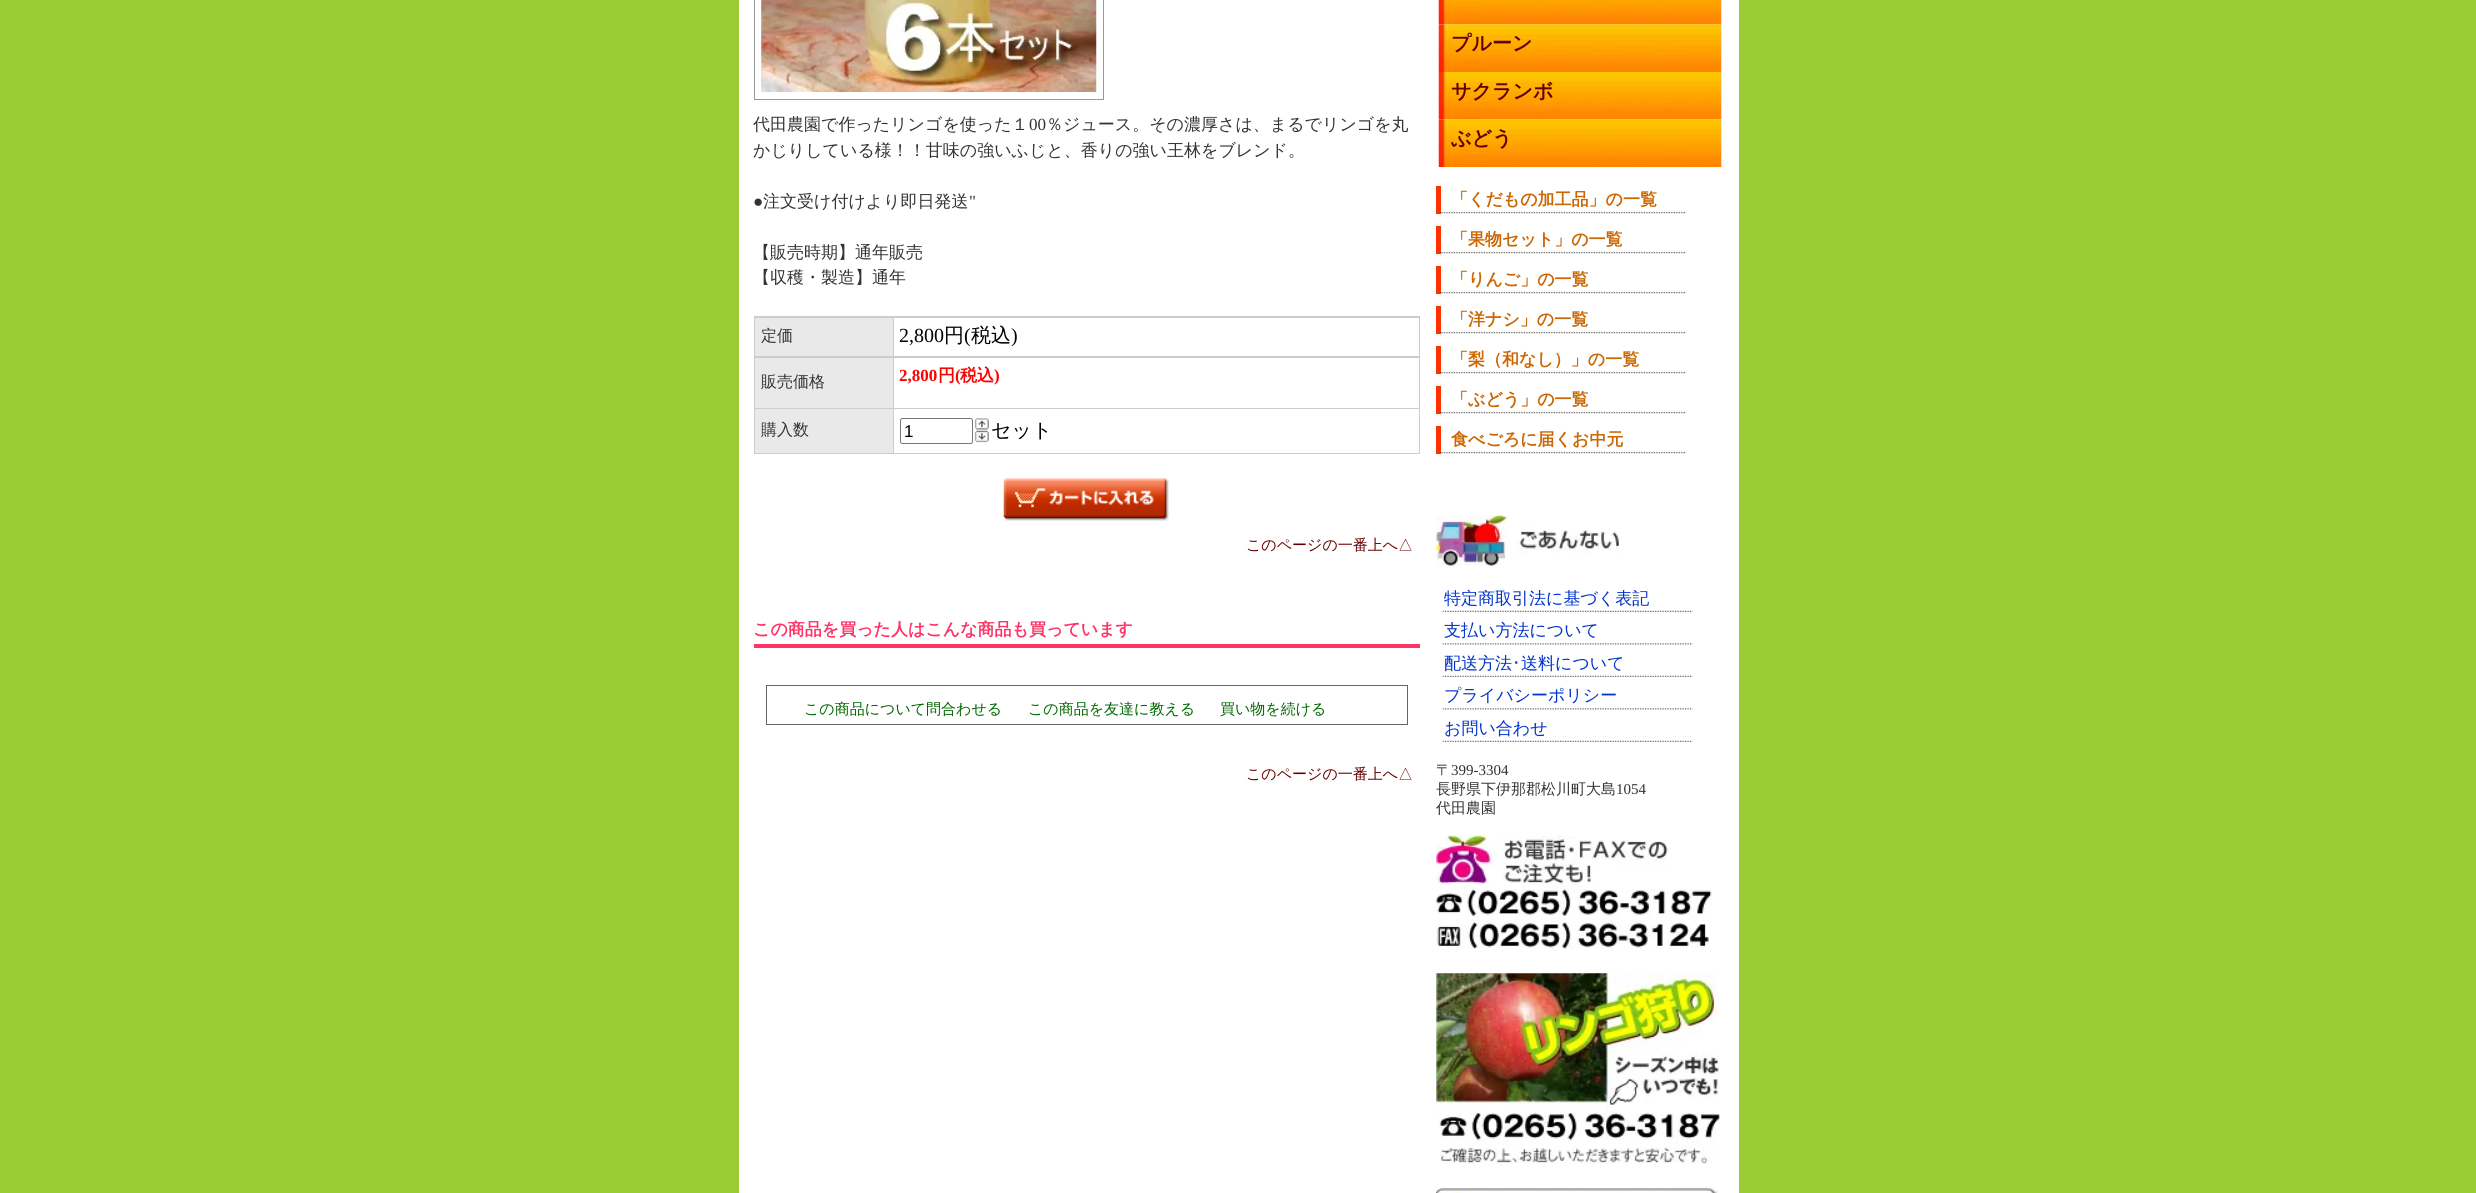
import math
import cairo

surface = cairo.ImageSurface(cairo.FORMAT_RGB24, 2476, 1193)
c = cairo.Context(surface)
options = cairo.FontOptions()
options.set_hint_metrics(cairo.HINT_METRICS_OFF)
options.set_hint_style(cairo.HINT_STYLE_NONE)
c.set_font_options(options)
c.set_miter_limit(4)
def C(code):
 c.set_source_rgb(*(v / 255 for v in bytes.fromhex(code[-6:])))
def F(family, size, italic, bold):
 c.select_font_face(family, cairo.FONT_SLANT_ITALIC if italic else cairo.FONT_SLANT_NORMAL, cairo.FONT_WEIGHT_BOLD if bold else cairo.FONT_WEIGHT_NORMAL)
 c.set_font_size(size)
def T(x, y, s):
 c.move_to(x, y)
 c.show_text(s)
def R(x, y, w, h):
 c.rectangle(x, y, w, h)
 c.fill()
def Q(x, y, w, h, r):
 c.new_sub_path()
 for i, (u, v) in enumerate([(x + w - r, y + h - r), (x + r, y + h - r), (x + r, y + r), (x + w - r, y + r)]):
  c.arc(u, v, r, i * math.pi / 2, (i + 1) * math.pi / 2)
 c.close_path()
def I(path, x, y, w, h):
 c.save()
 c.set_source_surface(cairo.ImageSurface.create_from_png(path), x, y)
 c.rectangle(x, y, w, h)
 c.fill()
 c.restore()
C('99cc33')
c.paint()
C('ffffff')
R(739,0,1000,1193)
c.rectangle(754.5,-.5,349,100)
C('999999')
c.set_line_width(1)
c.stroke()
I('1.png',761,0,336,92)
F('WenQuanYi Zen Hei Medium',17,0,0)
C('333333')
T(753,130,'代田農園で作ったリンゴを使った１')
F('Liberation Serif',17,0,0)
T(1029,130,'00')
F('WenQuanYi Zen Hei Medium',17,0,0)
T(1046,130,'％ジュース。その濃厚さは、まるでリンゴを丸')
T(753,156,'かじりしている様！！甘味の強いふじと、香りの強い王林をブレンド。')
T(763,207,'注文受け付けより即日発送')
F('Liberation Serif',17,0,0)
T(969,207,'"')
T(753,207,'●')
F('WenQuanYi Zen Hei Medium',17,0,0)
T(753,258,'【販売時期】通年販売')
T(753,283,'【収穫・製造】通年')
C('cccccc')
R(754,316,666,138)
C('e9e9e9')
R(755,318,138,38)
F('WenQuanYi Zen Hei Medium',16,0,0)
C('333333')
T(761,341,'定価')
C('ffffff')
R(894,318,525,38)
F('Liberation Serif',20,0,0)
C('000000')
T(899,342,'2,800')
F('WenQuanYi Zen Hei Medium',20,0,0)
T(944,342,'円')
F('Liberation Serif',20,0,0)
T(964,342,'(')
F('WenQuanYi Zen Hei Medium',20,0,0)
T(971,342,'税込')
F('Liberation Serif',20,0,0)
T(1011,342,')')
C('e9e9e9')
R(755,358,138,50)
F('WenQuanYi Zen Hei Medium',16,0,0)
C('333333')
T(761,387,'販売価格')
C('ffffff')
R(894,358,525,50)
F('Liberation Serif',17,0,1)
C('ff0000')
T(899,381,'2,800')
F('WenQuanYi Zen Hei',17,0,1)
T(938,381,'円')
F('Liberation Serif',17,0,1)
T(955,381,'(')
F('WenQuanYi Zen Hei',17,0,1)
T(960,381,'税込')
F('Liberation Serif',17,0,1)
T(994,381,')')
C('e9e9e9')
R(755,409,138,44)
F('WenQuanYi Zen Hei Medium',16,0,0)
C('333333')
T(761,435,'購入数')
C('ffffff')
R(894,409,525,44)
Q(900.5,418.5,72,25,2)
C('767676')
c.stroke()
F('Liberation Sans',17,0,0)
C('000000')
T(904,437,'1')
I('2.png',974,418,15,12)
I('3.png',974,430,15,13)
F('WenQuanYi Zen Hei Medium',20,0,0)
T(991,437,'セット')
I('4.png',1003,478,166,43)
F('WenQuanYi Zen Hei Medium',15,0,0)
C('660000')
T(1246,550,'このページの一番上へ△')
C('ff3366')
R(754,644,666,4)
F('WenQuanYi Zen Hei',17,0,1)
T(753,635,'この商品を買った人はこんな商品も買っています')
c.rectangle(766.5,685.5,641,39)
C('666666')
c.stroke()
F('WenQuanYi Zen Hei Medium',15,0,0)
C('006600')
T(804,714,'この商品について問合わせる')
T(1028,714,'この商品を友達に教える')
T(1220,714,'買い物を続ける')
C('660000')
T(1246,779,'このページの一番上へ△')
I('5.png',1438,0,284,25)
I('6.png',1438,24,284,48)
F('WenQuanYi Zen Hei',20,0,1)
T(1451,50,'プルーン')
I('7.png',1438,72,284,48)
T(1451,98,'サクランボ')
I('6.png',1438,119,284,48)
T(1451,145,'ぶどう')
I('8.png',1441,212,246,2)
C('ff3300')
R(1436,186,5,28)
F('WenQuanYi Zen Hei',17,0,1)
C('cc6600')
T(1451,205,'「くだもの加工品」の一覧')
I('8.png',1441,252,246,2)
C('ff3300')
R(1436,226,5,28)
C('cc6600')
T(1451,245,'「果物セット」の一覧')
I('8.png',1441,292,246,2)
C('ff3300')
R(1436,266,5,28)
C('cc6600')
T(1451,285,'「りんご」の一覧')
I('8.png',1441,332,246,2)
C('ff3300')
R(1436,306,5,28)
C('cc6600')
T(1451,325,'「洋ナシ」の一覧')
I('8.png',1441,372,246,2)
C('ff3300')
R(1436,346,5,28)
C('cc6600')
T(1451,365,'「梨（和なし）」の一覧')
I('8.png',1441,412,246,2)
C('ff3300')
R(1436,386,5,28)
C('cc6600')
T(1451,405,'「ぶどう」の一覧')
I('8.png',1441,452,246,2)
C('ff3300')
R(1436,426,5,28)
C('cc6600')
T(1451,445,'食べごろに届くお中元')
I('9.png',1436,515,183,51)
I('10.png',1442,610,251,2)
F('WenQuanYi Zen Hei Medium',17,0,0)
C('0033cc')
T(1444,604,'特定商取引法に基づく表記')
I('11.png',1442,643,251,2)
T(1444,636,'支払い方法について')
I('12.png',1442,675,251,2)
T(1444,669,'配送方法')
F('IPAPGothic',17,0,0)
T(1512,669,'･')
F('WenQuanYi Zen Hei Medium',17,0,0)
T(1521,669,'送料について')
I('11.png',1442,708,251,2)
T(1444,701,'プライバシーポリシー')
I('10.png',1442,740,251,2)
T(1444,734,'お問い合わせ')
F('WenQuanYi Zen Hei Medium',15,0,0)
C('333333')
T(1436,775,'〒')
F('Liberation Serif',15,0,0)
T(1451,775,'399-3304')
F('WenQuanYi Zen Hei Medium',15,0,0)
T(1436,794,'長野県下伊那郡松川町大島')
F('Liberation Serif',15,0,0)
T(1616,794,'1054')
F('WenQuanYi Zen Hei Medium',15,0,0)
T(1436,813,'代田農園')
I('13.png',1436,835,232,49)
I('14.png',1436,889,276,60)
I('15.png',1436,973,284,191)
I('16.png',1436,1188,282,5)
I('17.png',1436,1188,275,5)
surface.write_to_png('o.png')
